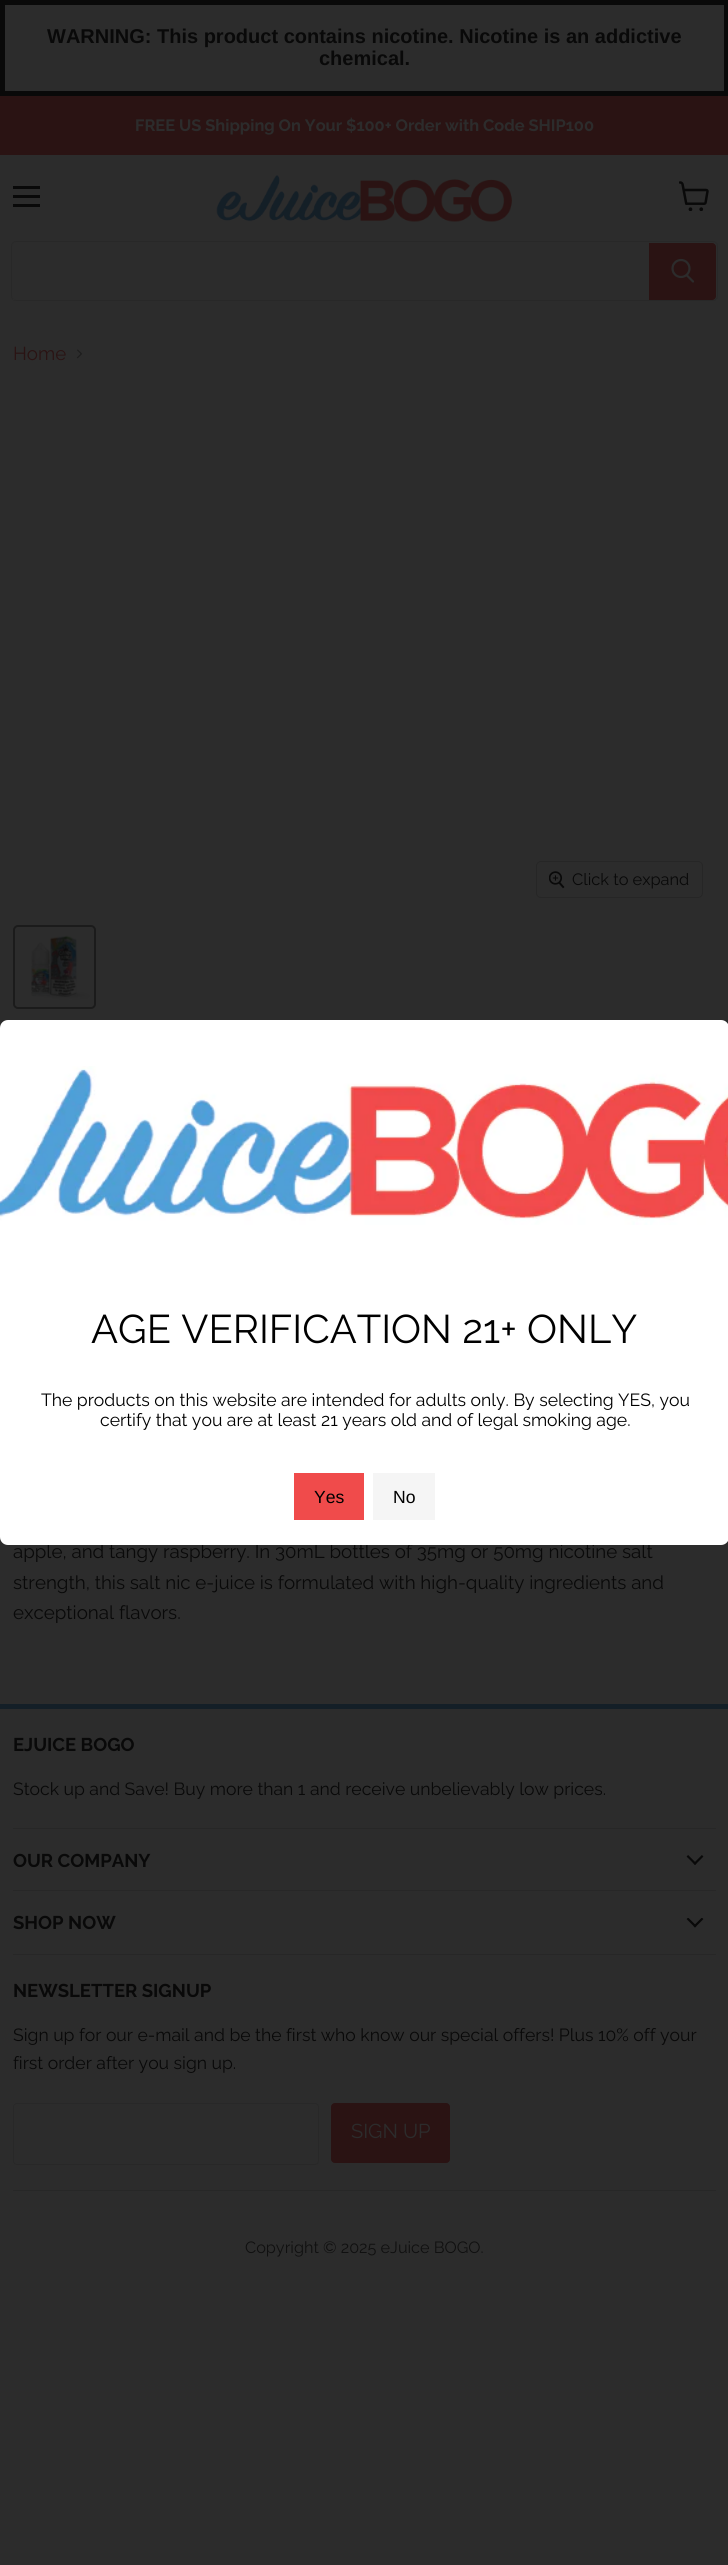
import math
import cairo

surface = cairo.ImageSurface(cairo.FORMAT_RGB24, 728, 2565)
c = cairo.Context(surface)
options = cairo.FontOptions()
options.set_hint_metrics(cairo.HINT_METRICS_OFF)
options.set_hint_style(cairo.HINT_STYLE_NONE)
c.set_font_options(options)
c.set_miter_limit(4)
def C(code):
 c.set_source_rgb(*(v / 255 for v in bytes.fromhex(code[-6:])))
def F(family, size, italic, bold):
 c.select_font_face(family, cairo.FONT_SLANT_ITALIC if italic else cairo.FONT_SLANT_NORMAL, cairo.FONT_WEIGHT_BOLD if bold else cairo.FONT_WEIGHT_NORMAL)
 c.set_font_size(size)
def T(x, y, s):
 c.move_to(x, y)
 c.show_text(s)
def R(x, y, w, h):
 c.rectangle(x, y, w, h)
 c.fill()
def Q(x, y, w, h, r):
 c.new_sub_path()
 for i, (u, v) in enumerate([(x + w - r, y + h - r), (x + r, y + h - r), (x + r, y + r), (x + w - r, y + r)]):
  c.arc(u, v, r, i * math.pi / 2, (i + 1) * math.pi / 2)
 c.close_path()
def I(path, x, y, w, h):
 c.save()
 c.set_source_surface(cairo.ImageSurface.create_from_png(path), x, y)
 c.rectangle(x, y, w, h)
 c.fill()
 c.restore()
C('2c2c2c')
c.paint()
c.rectangle(2.5,2.5,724,91)
C('090909')
c.set_line_width(5)
c.stroke()
F('Liberation Sans',20,0,1)
T(47,43,'WARNING: This product contains nicotine. Nicotine is an addictive')
T(319,65,'chemical.')
C('2a1313')
R(0,96,728,59)
F('Raleway',16.4,0,1)
C('2c2c2c')
T(135,131,'FREE US Shipping On Your $100+ Order with Code SHIP100')
I('1.png',216,174,297,50)
Q(11.5,241.5,706,59,4.5)
c.set_source_rgba(0.106,0.106,0.106,0.2)
c.set_line_width(1)
c.stroke()
C('2c2c2c')
R(13,299,1,1)
C('2a1313')
c.new_path()
c.move_to(649.5,243.5)
c.line_to(712,243.5)
c.curve_to(714,243.5,715.5,245,715.5,247)
c.line_to(715.5,296)
c.curve_to(715.5,298,714,299.5,712,299.5)
c.line_to(649.5,299.5)
c.close_path()
c.fill_preserve()
c.stroke()
c.new_path()
c.move_to(693,281.5)
c.line_to(687,275.5)
C('2c2c2c')
c.set_line_width(2.2)
c.set_line_cap(cairo.LINE_CAP_ROUND)
c.stroke()
c.arc(681,268.5,8.5,0,2 * math.pi)
c.set_line_cap(cairo.LINE_CAP_BUTT)
c.stroke()
C('090909')
R(13,186,27,3)
R(13,195,27,3)
R(13,204,27,3)
I('2.png',679,181,30,30)
F('Raleway',18.75,0,0)
C('2a1313')
T(13,360,'Home')
I('3.png',76,349,7,10)
Q(536.5,861.5,166,36,4.5)
C('262626')
c.set_line_width(1)
c.stroke()
I('4.png',549,871,16,18)
F('Raleway',16.4,0,0)
C('090909')
T(572,885,'Click to expand')
Q(14,926,81,82,4)
C('1b1b1b')
c.set_line_width(2)
c.stroke()
I('5.png',30,935,61,65)
F('Raleway',18.75,0,0)
C('090909')
T(13,1558,'apple, and tangy raspberry. In 30mL bottles of 35mg or 50mg nicotine salt')
T(13,1589,'strength, this salt nic e-juice is formulated with high-quality ingredients and')
T(13,1619,'exceptional flavors.')
C('ffffff')
c.new_path()
c.move_to(8,1020)
c.line_to(721,1020)
c.curve_to(725.5,1020,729,1023.5,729,1028)
c.line_to(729,1258)
c.line_to(0,1258)
c.line_to(0,1028)
c.curve_to(0,1023.5,3.5,1020,8,1020)
c.close_path()
c.fill()
I('6.png',0,1066,728,159)
R(0,1258,728,202)
F('Raleway',40,0,0)
C('000000')
T(91,1343,'AGE VERIFICATION 21+ ONLY')
F('Raleway',17.6,0,0)
T(41,1406,'The products on this website are intended for adults only. By selecting YES, you')
T(100,1426,'certify that you are at least 21 years old and of legal smoking age.')
C('ffffff')
c.new_path()
c.move_to(0,1460)
c.line_to(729,1460)
c.line_to(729,1537)
c.curve_to(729,1541.5,725.5,1545,721,1545)
c.line_to(8,1545)
c.curve_to(3.5,1545,0,1541.5,0,1537)
c.close_path()
c.fill()
C('f04b4b')
R(294,1473,70,47)
F('Liberation Sans',17.6,0,0)
C('000000')
T(314,1503,'Yes')
C('f5f5f5')
R(373,1473,62,47)
C('000000')
T(393,1503,'No')
C('141f27')
R(0,1704,728,5)
C('272727')
R(13,1828,703,1)
F('Raleway',18.5,0,1)
C('090909')
T(13,1751,'EJUICE BOGO')
F('Raleway',17.6,0,0)
T(13,1795,'Stock up and Save! Buy more than 1 and receive unbelievably low prices.')
C('272727')
R(13,1890,703,1)
F('Raleway',18.5,0,1)
C('090909')
T(13,1867,'OUR COMPANY')
I('7.png',686,1855,18,10)
C('272727')
R(13,1954,703,1)
C('090909')
T(13,1929,'SHOP NOW')
I('8.png',686,1918,18,10)
C('272727')
R(13,2190,703,1)
C('090909')
T(13,1997,'NEWSLETTER SIGNUP')
F('Raleway',17.6,0,0)
T(13,2041,'Sign up for our e-mail and be the first who know our special offers! Plus 10% off your')
T(13,2069,'first order after you sign up.')
Q(13.5,2103.5,305,61,3.5)
C('282828')
c.set_line_width(1)
c.stroke()
C('2a1313')
Q(331.5,2103.5,118,59,3.5)
c.fill_preserve()
c.stroke()
F('Raleway',20,0,0)
C('2c2c2c')
T(351,2138,'SIGN UP')
F('Raleway',16.25,0,0)
C('101010')
T(245,2253,'Copyright © 2025 eJuice BOGO.')
surface.write_to_png('o.png')
